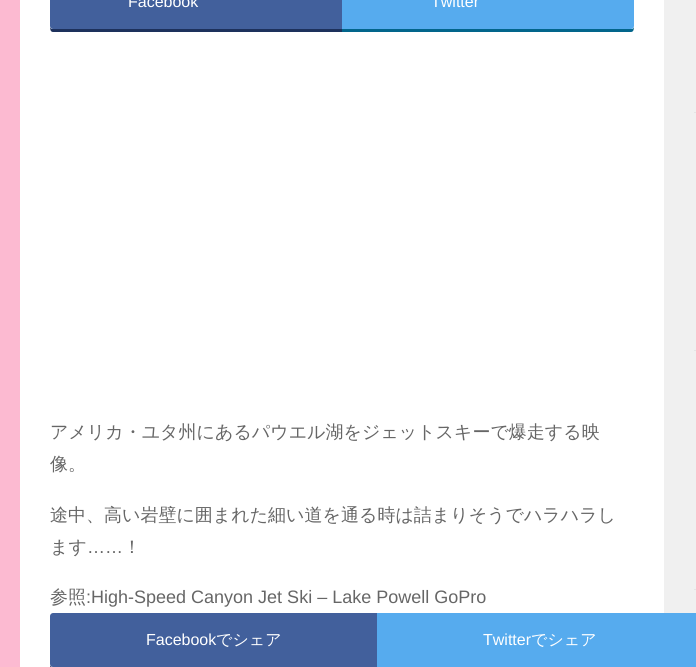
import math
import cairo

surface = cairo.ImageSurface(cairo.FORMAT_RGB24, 696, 667)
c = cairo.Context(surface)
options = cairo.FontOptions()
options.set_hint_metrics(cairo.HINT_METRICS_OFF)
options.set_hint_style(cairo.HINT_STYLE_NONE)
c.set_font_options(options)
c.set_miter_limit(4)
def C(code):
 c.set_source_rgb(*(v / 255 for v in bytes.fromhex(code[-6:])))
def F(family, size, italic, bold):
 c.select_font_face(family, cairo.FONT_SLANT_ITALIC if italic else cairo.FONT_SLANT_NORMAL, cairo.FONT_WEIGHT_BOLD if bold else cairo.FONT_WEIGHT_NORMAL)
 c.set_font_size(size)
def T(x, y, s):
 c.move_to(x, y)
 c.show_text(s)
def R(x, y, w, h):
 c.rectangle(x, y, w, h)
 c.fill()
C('fcbad1')
c.paint()
C('ffffff')
R(20,0,644,667)
C('f0f0f0')
R(664,0,32,613)
C('1d315c')
c.new_path()
c.move_to(50,26)
c.curve_to(50,28,50,32,53,32)
c.line_to(342,32)
c.line_to(342,29)
c.line_to(53,29)
c.curve_to(51,29,50,28,50,26)
c.close_path()
c.fill()
C('42609c')
c.new_path()
c.move_to(53,-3)
c.line_to(342,-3)
c.line_to(342,29)
c.line_to(53,29)
c.curve_to(51.5,29,50,27.5,50,26)
c.line_to(50,0)
c.curve_to(50,-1.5,51.5,-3,53,-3)
c.close_path()
c.fill()
F('Liberation Sans',16,0,0)
C('ffffff')
T(128,7,'Facebook')
C('02658b')
c.new_path()
c.move_to(342,29)
c.line_to(342,32)
c.line_to(631,32)
c.curve_to(634,32,634,28,634,26)
c.curve_to(634,28,633,29,631,29)
c.close_path()
c.fill()
C('56abee')
c.new_path()
c.move_to(342,-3)
c.line_to(631,-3)
c.curve_to(632.5,-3,634,-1.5,634,0)
c.line_to(634,26)
c.curve_to(634,27.5,632.5,29,631,29)
c.line_to(342,29)
c.close_path()
c.fill()
C('ffffff')
T(431,7,'Twitter')
F('WenQuanYi Zen Hei Medium',18,0,0)
C('666666')
T(50,438,'アメリカ・ユタ州にあるパウエル湖をジェットスキーで爆走する映')
T(50,470,'像。')
T(50,521,'途中、高い岩壁に囲まれた細い道を通る時は詰まりそうでハラハラし')
T(50,553,'ます')
F('Liberation Sans',18,0,0)
T(87,553,'……')
F('WenQuanYi Zen Hei Medium',18,0,0)
T(123,553,'！')
T(50,603,'参照')
F('Liberation Sans',18,0,0)
T(86,603,':High-Speed Canyon Jet Ski – Lake Powell GoPro')
C('1d315c')
c.new_path()
c.move_to(50,664)
c.curve_to(50,666,50,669,52,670)
c.line_to(377,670)
c.line_to(377,667)
c.line_to(53,667)
c.curve_to(51,667,50,666,50,664)
c.close_path()
c.fill()
C('42609c')
c.new_path()
c.move_to(53,613)
c.line_to(377,613)
c.line_to(377,667)
c.line_to(53,667)
c.curve_to(51.5,667,50,665.5,50,664)
c.line_to(50,616)
c.curve_to(50,614.5,51.5,613,53,613)
c.close_path()
c.fill()
F('Liberation Sans',16,0,0)
C('ffffff')
T(146,645,'Facebook')
F('WenQuanYi Zen Hei Medium',16,0,0)
T(216,645,'でシェア')
C('56abee')
R(377,613,319,54)
F('Liberation Sans',16,0,0)
C('ffffff')
T(483,645,'Twitter')
F('WenQuanYi Zen Hei Medium',16,0,0)
T(531,645,'でシェア')
C('e4e4e4')
R(694,112,2,1)
R(694,350,2,1)
R(694,589,2,1)
surface.write_to_png('o.png')
